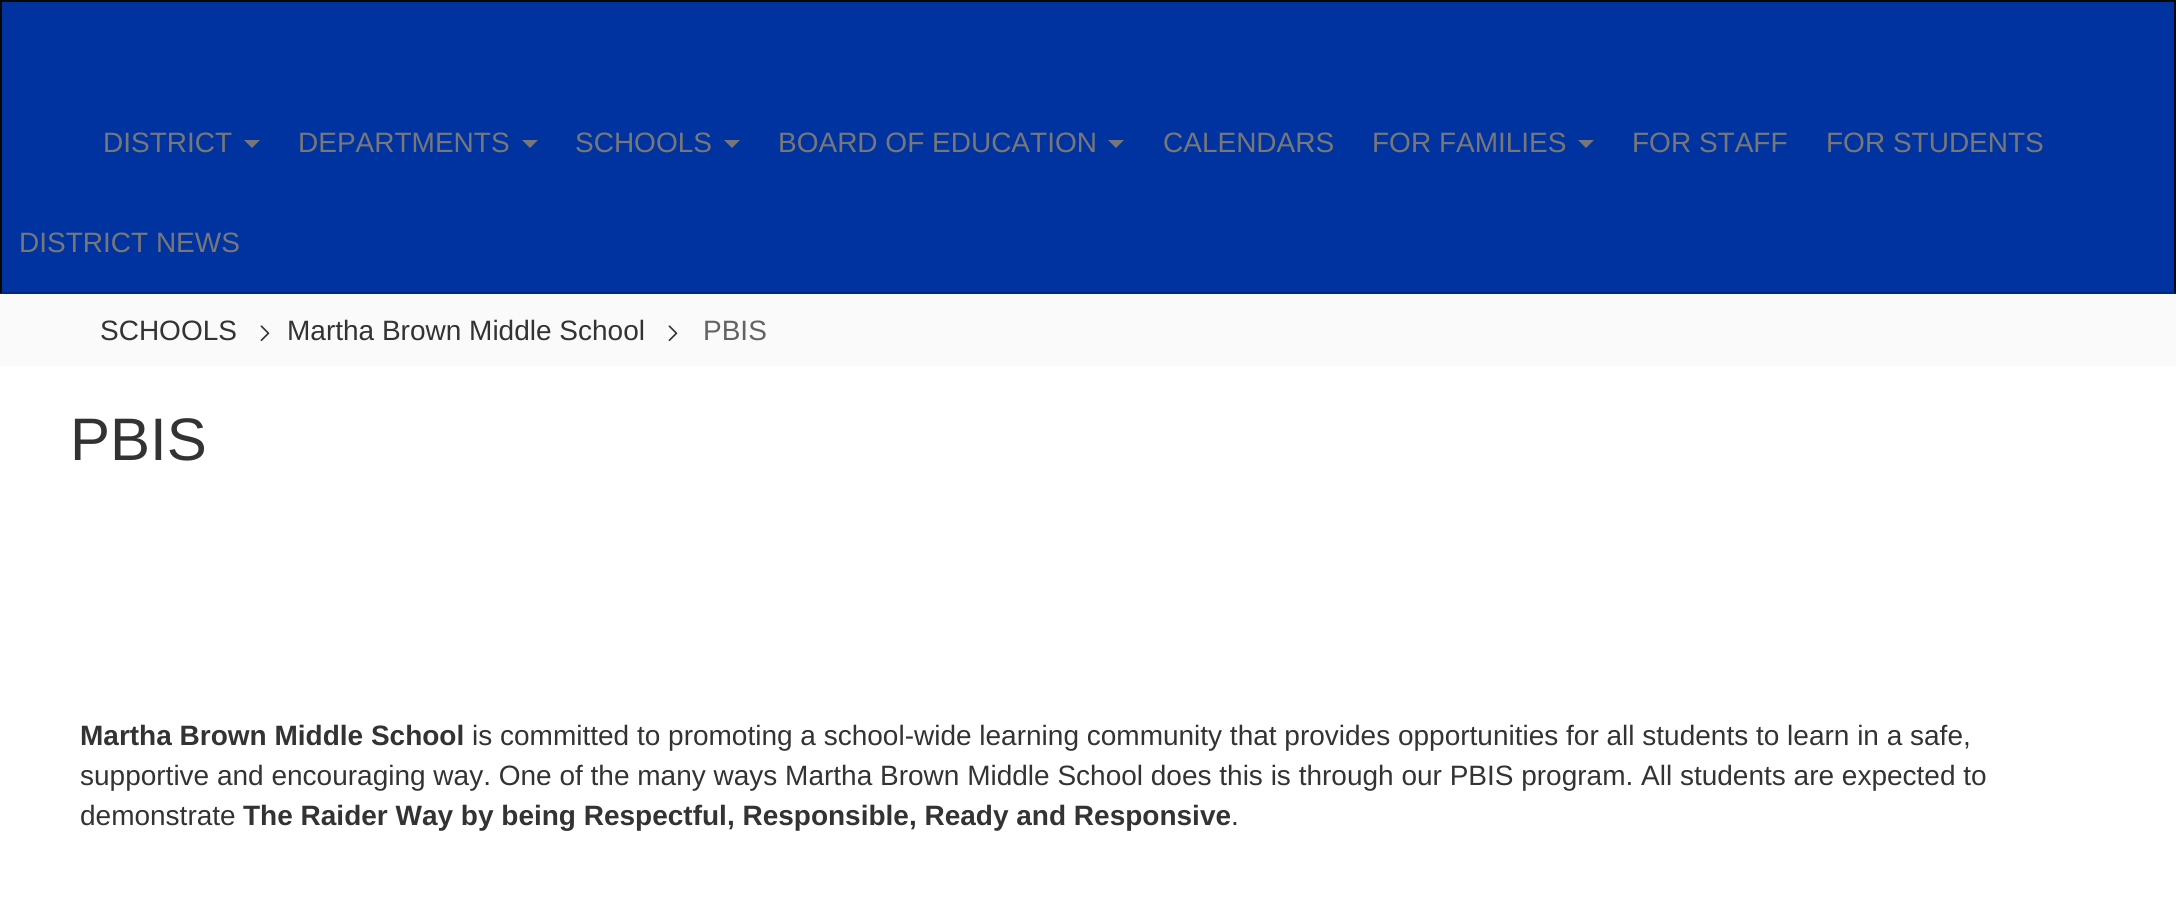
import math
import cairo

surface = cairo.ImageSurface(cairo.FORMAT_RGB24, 2176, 898)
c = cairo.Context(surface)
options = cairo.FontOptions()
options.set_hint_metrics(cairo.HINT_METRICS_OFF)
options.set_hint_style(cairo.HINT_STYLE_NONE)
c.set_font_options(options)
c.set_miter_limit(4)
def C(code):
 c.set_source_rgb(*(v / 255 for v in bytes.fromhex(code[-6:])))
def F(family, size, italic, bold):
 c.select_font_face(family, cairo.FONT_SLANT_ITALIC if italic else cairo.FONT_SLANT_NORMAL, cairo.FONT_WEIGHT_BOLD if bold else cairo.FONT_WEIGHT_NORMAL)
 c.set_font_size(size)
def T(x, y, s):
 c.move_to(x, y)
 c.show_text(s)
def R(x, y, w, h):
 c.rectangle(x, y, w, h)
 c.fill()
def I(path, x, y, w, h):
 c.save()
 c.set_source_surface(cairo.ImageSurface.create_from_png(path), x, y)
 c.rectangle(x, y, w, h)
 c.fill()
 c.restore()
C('ffffff')
c.paint()
C('0033a0')
R(0,2,2176,292)
C('080808')
R(0,0,2176,2)
c.new_path()
c.move_to(2176,0)
c.line_to(2176,294)
c.line_to(2174,292)
c.line_to(2174,2)
c.close_path()
c.fill()
c.set_source_rgba(0,0,0,0.2)
c.new_path()
c.move_to(2176,294)
c.line_to(0,294)
c.line_to(2,292)
c.line_to(2174,292)
c.close_path()
c.fill()
C('080808')
c.new_path()
c.move_to(0,294)
c.line_to(0,0)
c.line_to(2,2)
c.line_to(2,292)
c.close_path()
c.fill()
F('Liberation Sans',28,0,0)
C('777777')
T(103,152,'DISTRICT')
c.new_path()
c.move_to(244,140)
c.line_to(260,140)
c.line_to(252,148)
c.close_path()
c.fill()
T(298,152,'DEPARTMENTS')
c.new_path()
c.move_to(522,140)
c.line_to(538,140)
c.line_to(530,148)
c.close_path()
c.fill()
T(575,152,'SCHOOLS')
c.new_path()
c.move_to(724,140)
c.line_to(740,140)
c.line_to(732,148)
c.close_path()
c.fill()
T(778,152,'BOARD OF EDUCATION')
c.new_path()
c.move_to(1108,140)
c.line_to(1124,140)
c.line_to(1116,148)
c.close_path()
c.fill()
T(1163,152,'CALENDARS')
T(1372,152,'FOR FAMILIES')
c.new_path()
c.move_to(1578,140)
c.line_to(1594,140)
c.line_to(1586,148)
c.close_path()
c.fill()
T(1632,152,'FOR STAFF')
T(1826,152,'FOR STUDENTS')
T(19,252,'DISTRICT NEWS')
C('fafafa')
R(0,294,2176,72)
C('333333')
T(100,340,'SCHOOLS')
I('1.png',260,325,10,17)
T(287,340,'Martha Brown Middle School')
I('1.png',668,325,10,17)
C('636363')
T(703,340,'PBIS')
F('Liberation Sans',60,0,0)
C('333333')
T(70,460,'PBIS')
F('Liberation Sans',28,0,1)
T(80,745,'Martha Brown Middle School')
F('Liberation Sans',28,0,0)
T(472,745,'is committed to promoting a school-wide learning community that provides opportunities for all students to learn in a safe,')
T(80,785,'supportive and encouraging way. One of the many ways Martha Brown Middle School does this is through our PBIS program. All students are expected to')
T(80,825,'demonstrate')
F('Liberation Sans',28,0,1)
T(243,825,'The Raider Way by being Respectful, Responsible, Ready and Responsive')
F('Liberation Sans',28,0,0)
T(1231,825,'.')
surface.write_to_png('o.png')
